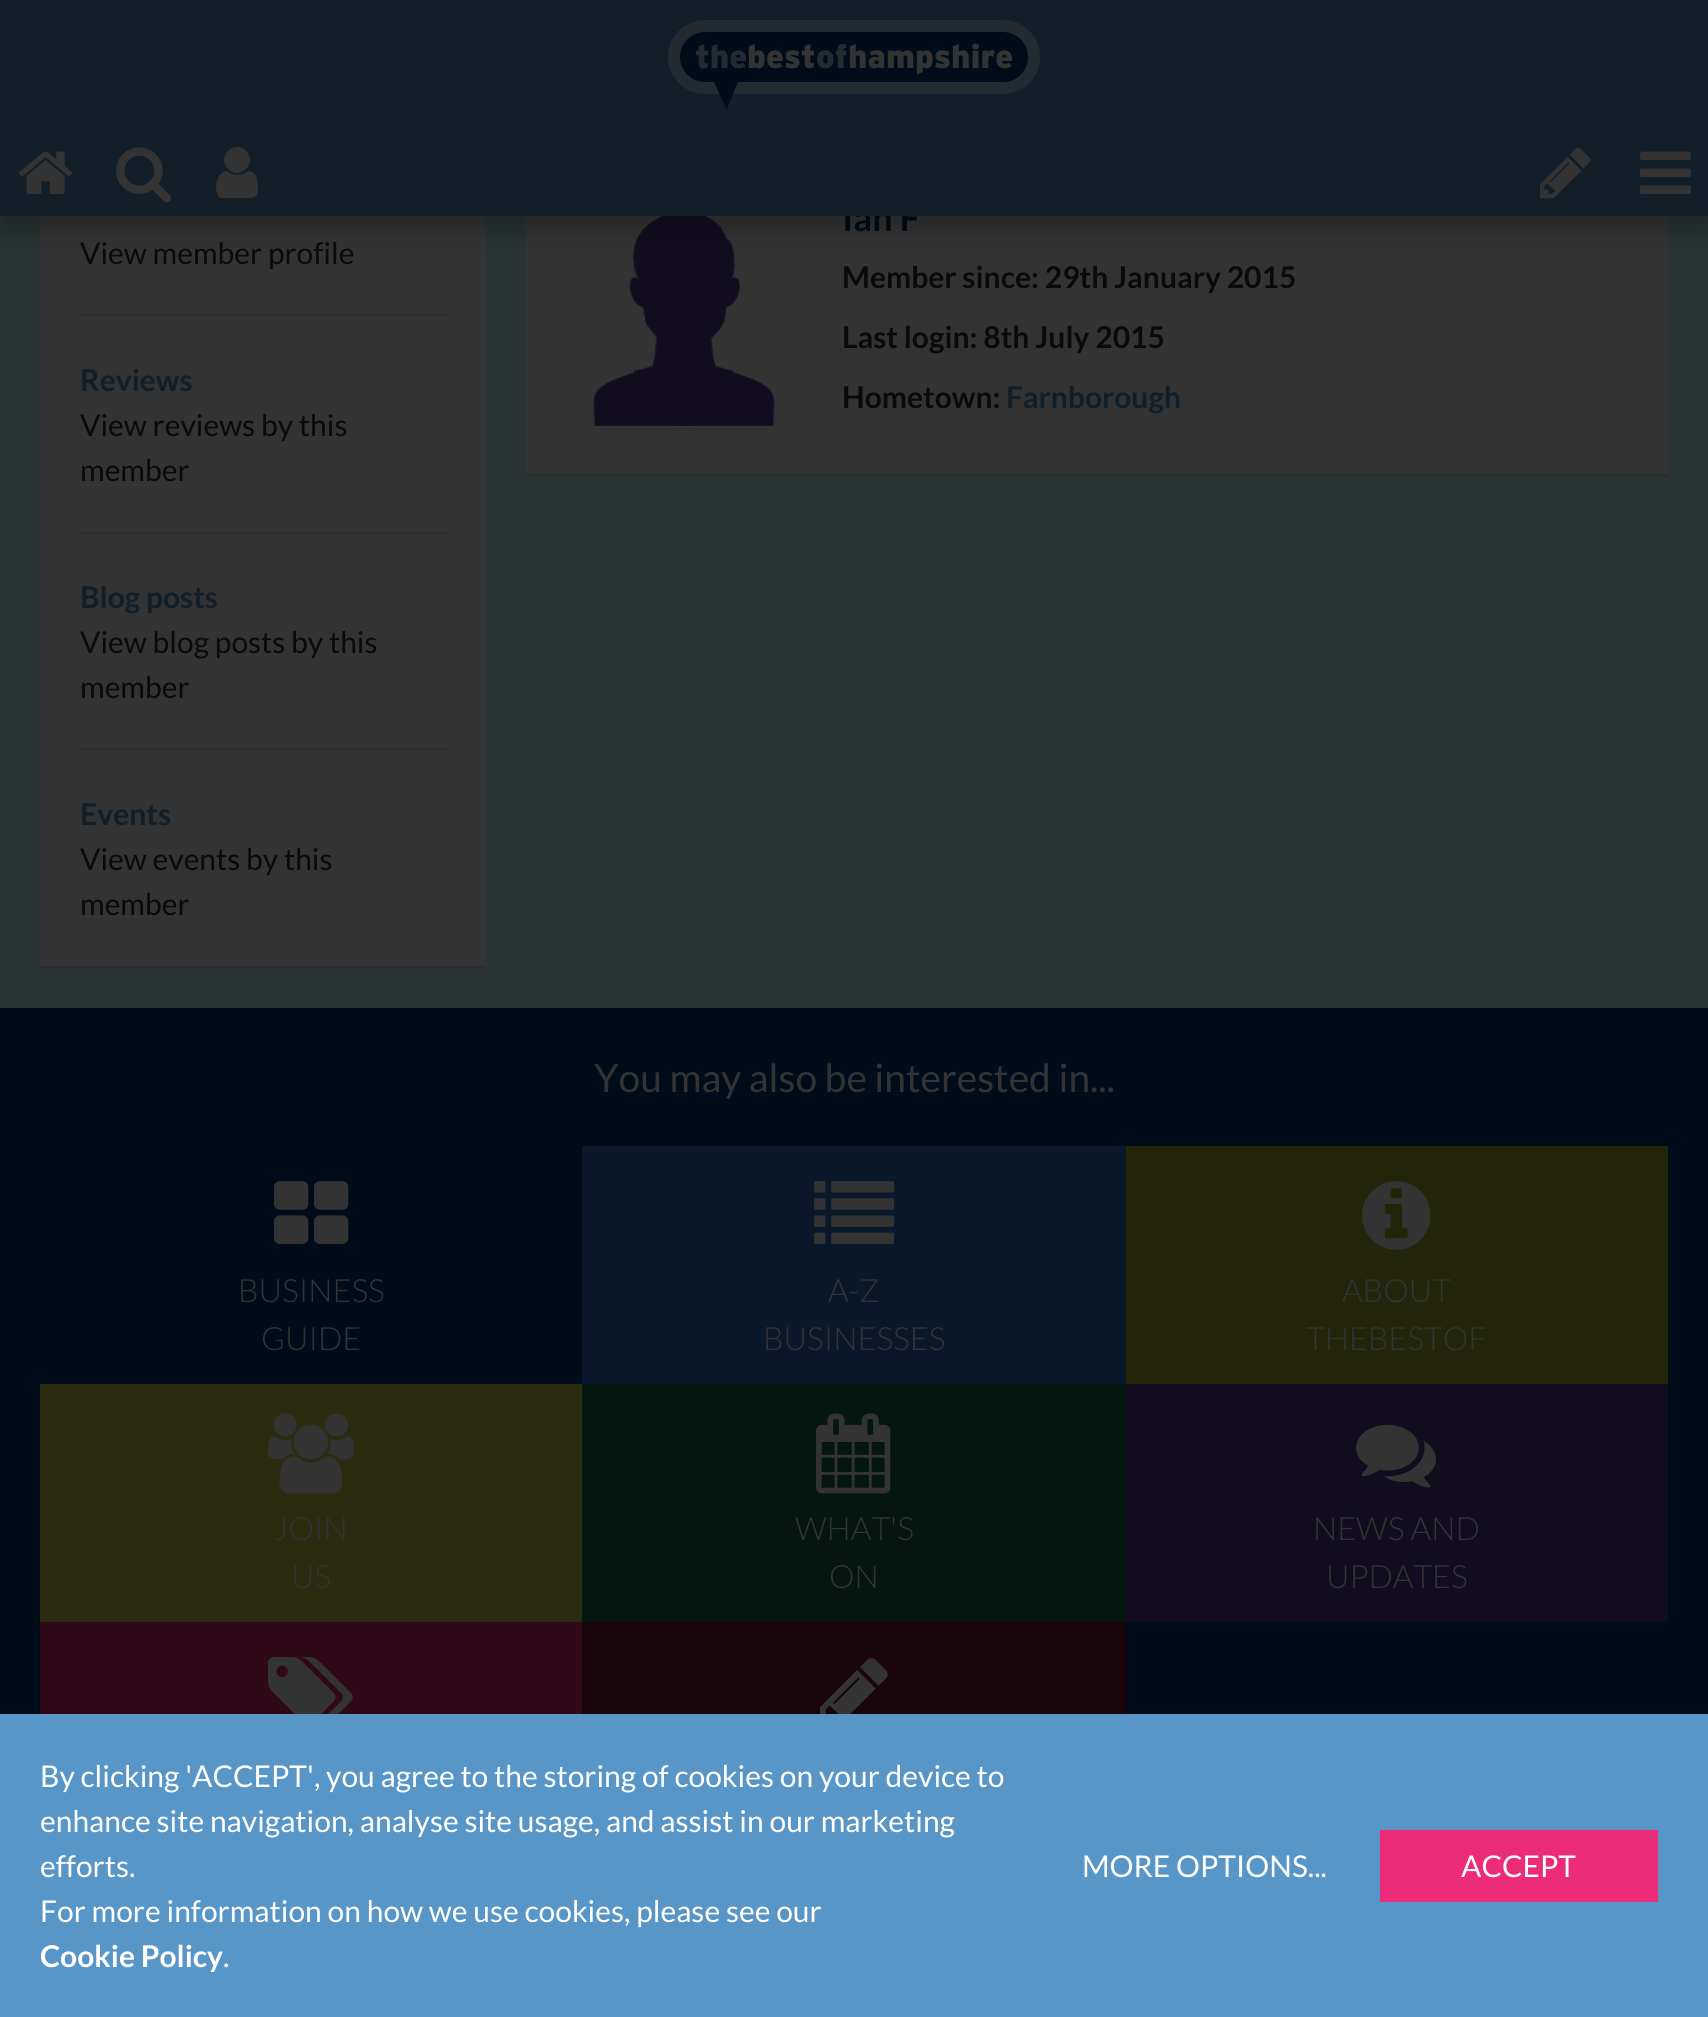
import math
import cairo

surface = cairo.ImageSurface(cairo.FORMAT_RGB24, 1708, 2017)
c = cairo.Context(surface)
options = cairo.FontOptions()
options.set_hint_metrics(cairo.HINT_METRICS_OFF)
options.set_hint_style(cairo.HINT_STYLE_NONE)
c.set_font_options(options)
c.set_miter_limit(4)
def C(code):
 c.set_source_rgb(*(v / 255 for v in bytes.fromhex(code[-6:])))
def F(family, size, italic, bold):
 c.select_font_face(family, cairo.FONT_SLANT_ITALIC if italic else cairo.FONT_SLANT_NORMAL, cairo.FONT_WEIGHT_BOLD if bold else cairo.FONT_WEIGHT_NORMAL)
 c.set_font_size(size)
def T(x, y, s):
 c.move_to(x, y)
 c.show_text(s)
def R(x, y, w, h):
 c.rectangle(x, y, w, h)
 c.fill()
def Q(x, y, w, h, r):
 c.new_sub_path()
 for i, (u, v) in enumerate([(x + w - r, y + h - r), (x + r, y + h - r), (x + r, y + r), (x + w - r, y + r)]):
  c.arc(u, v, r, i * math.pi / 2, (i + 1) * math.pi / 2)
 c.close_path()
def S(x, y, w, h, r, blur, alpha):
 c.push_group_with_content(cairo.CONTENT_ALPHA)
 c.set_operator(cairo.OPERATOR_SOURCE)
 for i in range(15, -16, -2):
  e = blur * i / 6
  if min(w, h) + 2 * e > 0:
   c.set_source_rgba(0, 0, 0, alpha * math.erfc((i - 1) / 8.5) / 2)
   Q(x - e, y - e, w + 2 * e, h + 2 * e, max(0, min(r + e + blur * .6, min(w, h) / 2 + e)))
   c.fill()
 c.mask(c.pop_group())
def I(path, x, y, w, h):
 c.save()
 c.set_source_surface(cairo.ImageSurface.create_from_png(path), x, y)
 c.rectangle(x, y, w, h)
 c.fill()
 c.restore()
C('293333')
c.paint()
C('333333')
R(526,216,1142,258)
F('Lato',36,0,1)
C('000c19')
T(842,231,'Ian F')
C('121e28')
R(0,0,1708,216)
C('333333')
R(40,216,446,750)
I('5.png',594,216,180,210)
I('6.png',593,216,182,210)
I('7.png',593,216,182,210)
c.save()
c.rectangle(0,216,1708,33)
c.clip()
C('000000')
S(0,10,1708,216,0,15,.3)
c.restore()
C('000c19')
Q(674,26,360,62,31)
c.fill_preserve()
C('242b30')
c.set_line_width(12)
c.stroke()
F('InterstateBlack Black',33,0,0)
T(695,68,'the')
C('333333')
T(747,68,'best')
C('242b30')
T(816,68,'of')
C('333333')
T(848,68,'hampshire')
C('000c19')
c.set_fill_rule(cairo.FILL_RULE_EVEN_ODD)
c.new_path()
c.move_to(714,82)
c.line_to(726.5,109.5)
c.line_to(738,82)
c.close_path()
c.fill()
I('1.png',18,151,55,43)
I('2.png',116,147,56,56)
C('333333')
c.set_fill_rule(cairo.FILL_RULE_WINDING)
c.new_path()
c.move_to(258,189)
c.curve_to(258,198,253,198,247,198)
c.line_to(221,198)
c.curve_to(212,194,216,171,227,171)
c.curve_to(233,176,242,176,248,171)
c.curve_to(257,171,258,182,258,189)
c.close_path()
c.move_to(246,151)
c.curve_to(258,163,240,181,228,169)
c.curve_to(216,157,234,139,246,151)
c.close_path()
c.fill()
I('3.png',1540,148,51,51)
I('4.png',1640,151,51,43)
C('2c2c2c')
R(40,966,446,2)
R(80,314,366,2)
F('Lato',30,0,0)
C('0a0a0a')
T(80,264,'View member profile')
C('2c2c2c')
R(80,532,366,2)
F('Lato',30,0,1)
C('121e28')
T(80,391,'Reviews')
F('Lato',30,0,0)
C('0a0a0a')
T(80,436,'View reviews by this')
T(80,481,'member')
C('2c2c2c')
R(80,748,366,2)
F('Lato',30,0,1)
C('121e28')
T(80,608,'Blog posts')
F('Lato',30,0,0)
C('0a0a0a')
T(80,653,'View blog posts by this')
T(80,698,'member')
F('Lato',30,0,1)
C('121e28')
T(80,825,'Events')
F('Lato',30,0,0)
C('0a0a0a')
T(80,870,'View events by this')
T(80,915,'member')
C('2c2c2c')
R(526,474,1142,2)
F('Lato',30,0,1)
C('0a0a0a')
T(842,288,'Member since: 29th January 2015')
T(842,348,'Last login: 8th July 2015')
T(842,408,'Hometown:')
C('121e28')
T(1006,408,'Farnborough')
C('000c19')
R(0,1008,1708,706)
F('Lato',39,0,0)
C('333333')
T(594,1092,'You may also be interested in...')
I('8.png',274,1181,75,63)
F('Lato Light',32,0,0)
T(238,1302,'BUSINESS')
T(261,1350,'GUIDE')
C('09192b')
R(582,1146,544,238)
I('9.png',814,1181,80,63)
C('333333')
T(828,1302,'A-Z')
T(763,1350,'BUSINESSES')
C('23250a')
R(1126,1146,542,238)
I('10.png',1362,1181,69,69)
C('333333')
T(1342,1302,'ABOUT')
T(1306,1350,'THEBESTOF')
C('2b2c0f')
R(40,1384,542,238)
I('11.png',268,1413,86,81)
C('333333')
T(274,1540,'JOIN')
T(291,1588,'US')
C('031610')
R(582,1384,544,238)
I('12.png',816,1413,75,81)
C('333333')
T(795,1540,'WHAT\'S')
T(829,1588,'ON')
C('120d1e')
R(1126,1384,542,238)
I('13.png',1356,1424,80,64)
C('333333')
T(1313,1540,'NEWS AND')
T(1326,1588,'UPDATES')
C('2f0918')
R(40,1622,542,92)
I('14.png',268,1657,85,57)
C('1a050c')
R(582,1622,544,92)
I('15.png',820,1658,68,56)
C('5896c8')
R(0,1714,1708,303)
F('Lato',30,0,0)
C('ffffff')
T(40,1787,'By clicking \'ACCEPT\', you agree to the storing of cookies on your device to')
T(40,1832,'enhance site navigation, analyse site usage, and assist in our marketing')
T(40,1877,'efforts.')
T(40,1922,'For more information on how we use cookies, please see our')
F('Lato',30,0,1)
T(40,1967,'Cookie Policy')
F('Lato',30,0,0)
T(223,1967,'.')
T(1082,1877,'MORE OPTIONS...')
C('ec2b79')
R(1380,1830,278,72)
C('ffffff')
T(1461,1877,'ACCEPT')
surface.write_to_png('o.png')
